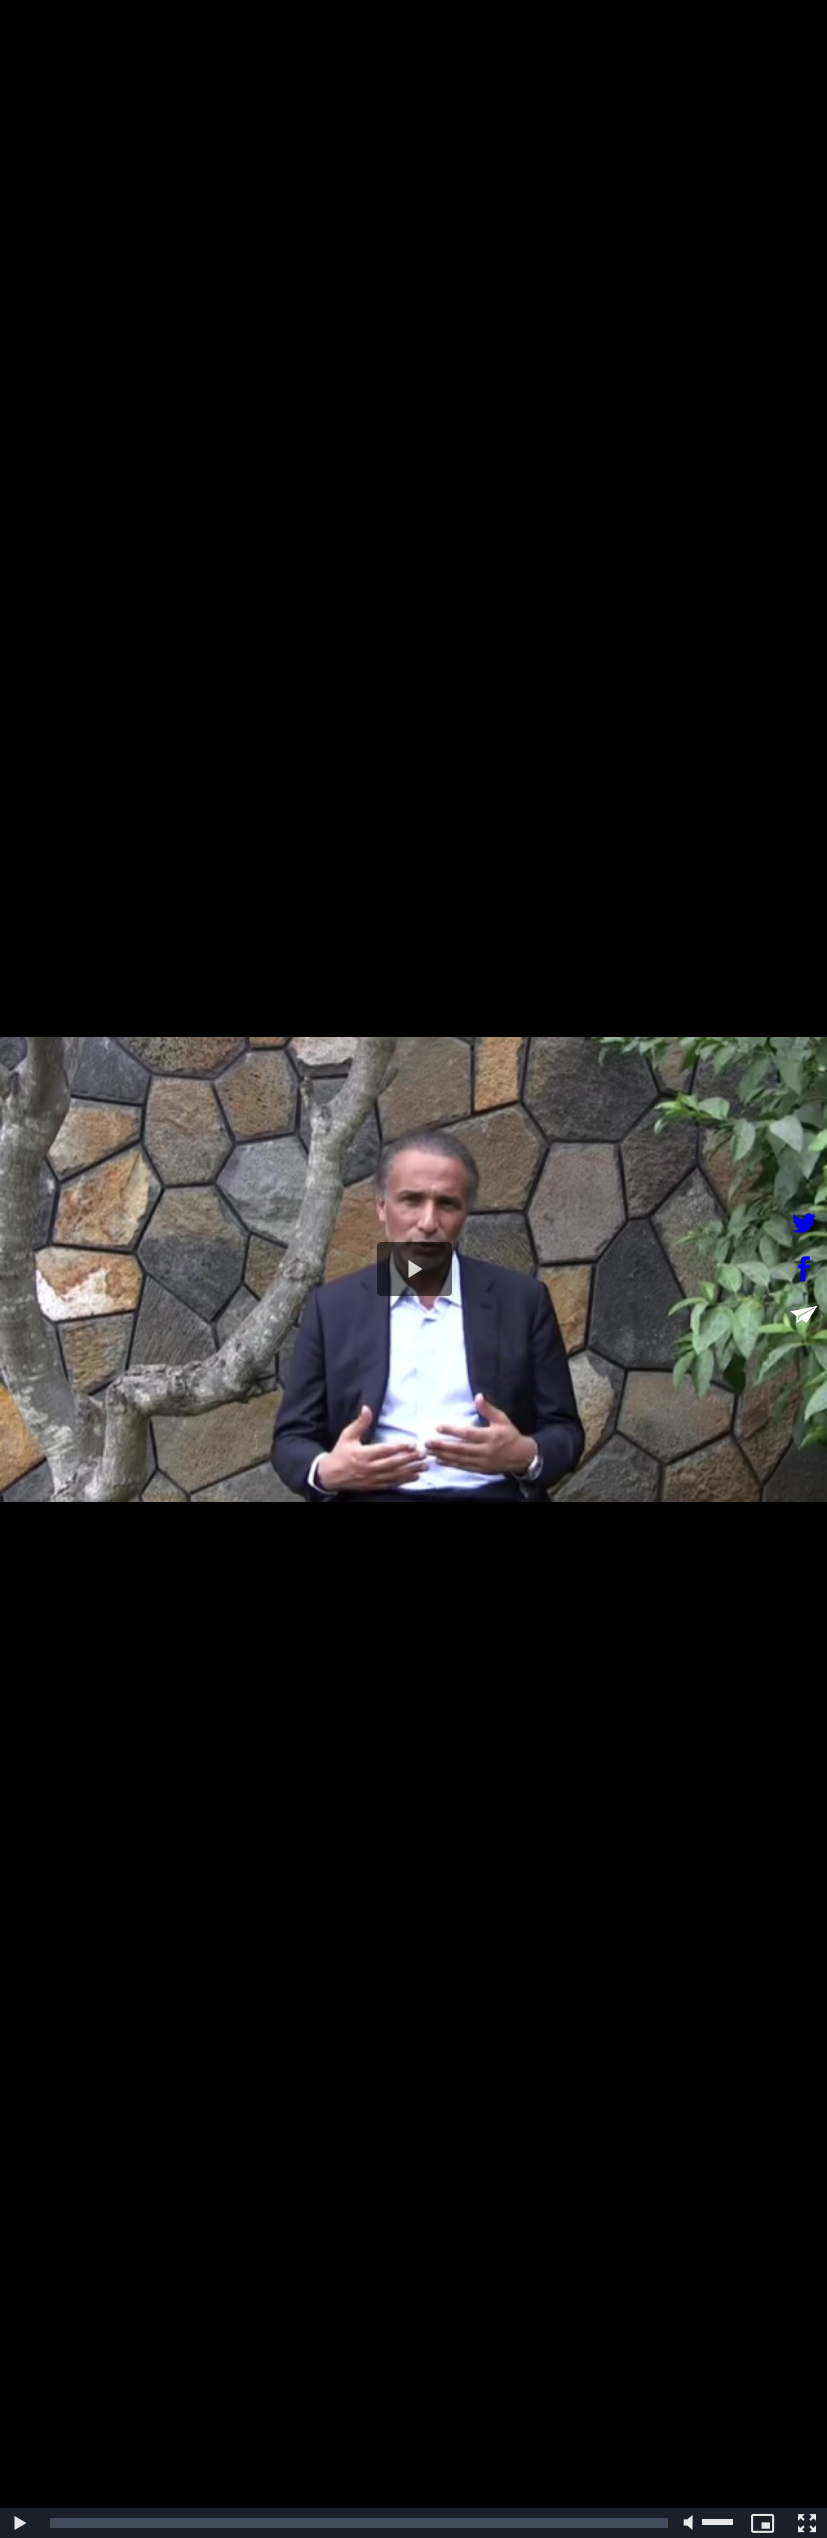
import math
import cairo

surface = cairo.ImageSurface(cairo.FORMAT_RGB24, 827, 2538)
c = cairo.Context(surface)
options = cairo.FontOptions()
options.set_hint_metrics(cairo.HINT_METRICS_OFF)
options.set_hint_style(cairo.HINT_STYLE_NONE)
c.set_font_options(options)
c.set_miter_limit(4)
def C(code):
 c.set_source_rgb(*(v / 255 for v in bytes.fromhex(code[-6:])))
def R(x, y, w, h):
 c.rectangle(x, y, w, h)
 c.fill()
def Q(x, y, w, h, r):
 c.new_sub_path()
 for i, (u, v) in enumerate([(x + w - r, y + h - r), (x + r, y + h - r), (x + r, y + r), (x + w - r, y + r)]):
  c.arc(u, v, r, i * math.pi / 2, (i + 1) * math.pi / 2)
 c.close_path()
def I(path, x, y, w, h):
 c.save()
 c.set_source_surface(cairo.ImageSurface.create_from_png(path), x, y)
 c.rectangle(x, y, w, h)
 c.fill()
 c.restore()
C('000000')
c.paint()
I('1.png',0,1037,827,465)
c.set_source_rgba(0,0,0,0.56)
Q(377,1242,75,54,4)
c.fill()
c.set_source_rgba(1,1,1,0.8)
c.new_path()
c.move_to(408.5,1260)
c.line_to(408.5,1278)
c.line_to(422.5,1269)
c.close_path()
c.fill()
I('2.png',792,1213,24,20)
I('3.png',797,1256,13,26)
I('4.png',790,1305,28,18)
C('1b2028')
R(0,2508,827,30)
C('e6e6e6')
c.new_path()
c.move_to(14.5,2523)
c.line_to(14.5,2516)
c.line_to(26.5,2523)
c.line_to(14.5,2530)
c.close_path()
c.fill()
C('424c5c')
R(50,2518,618,10)
I('5.png',683,2515,10,15)
C('e6e6e6')
R(702,2519,31,6)
I('6.png',751,2513,24,20)
I('7.png',798,2514,18,19)
surface.write_to_png('o.png')
